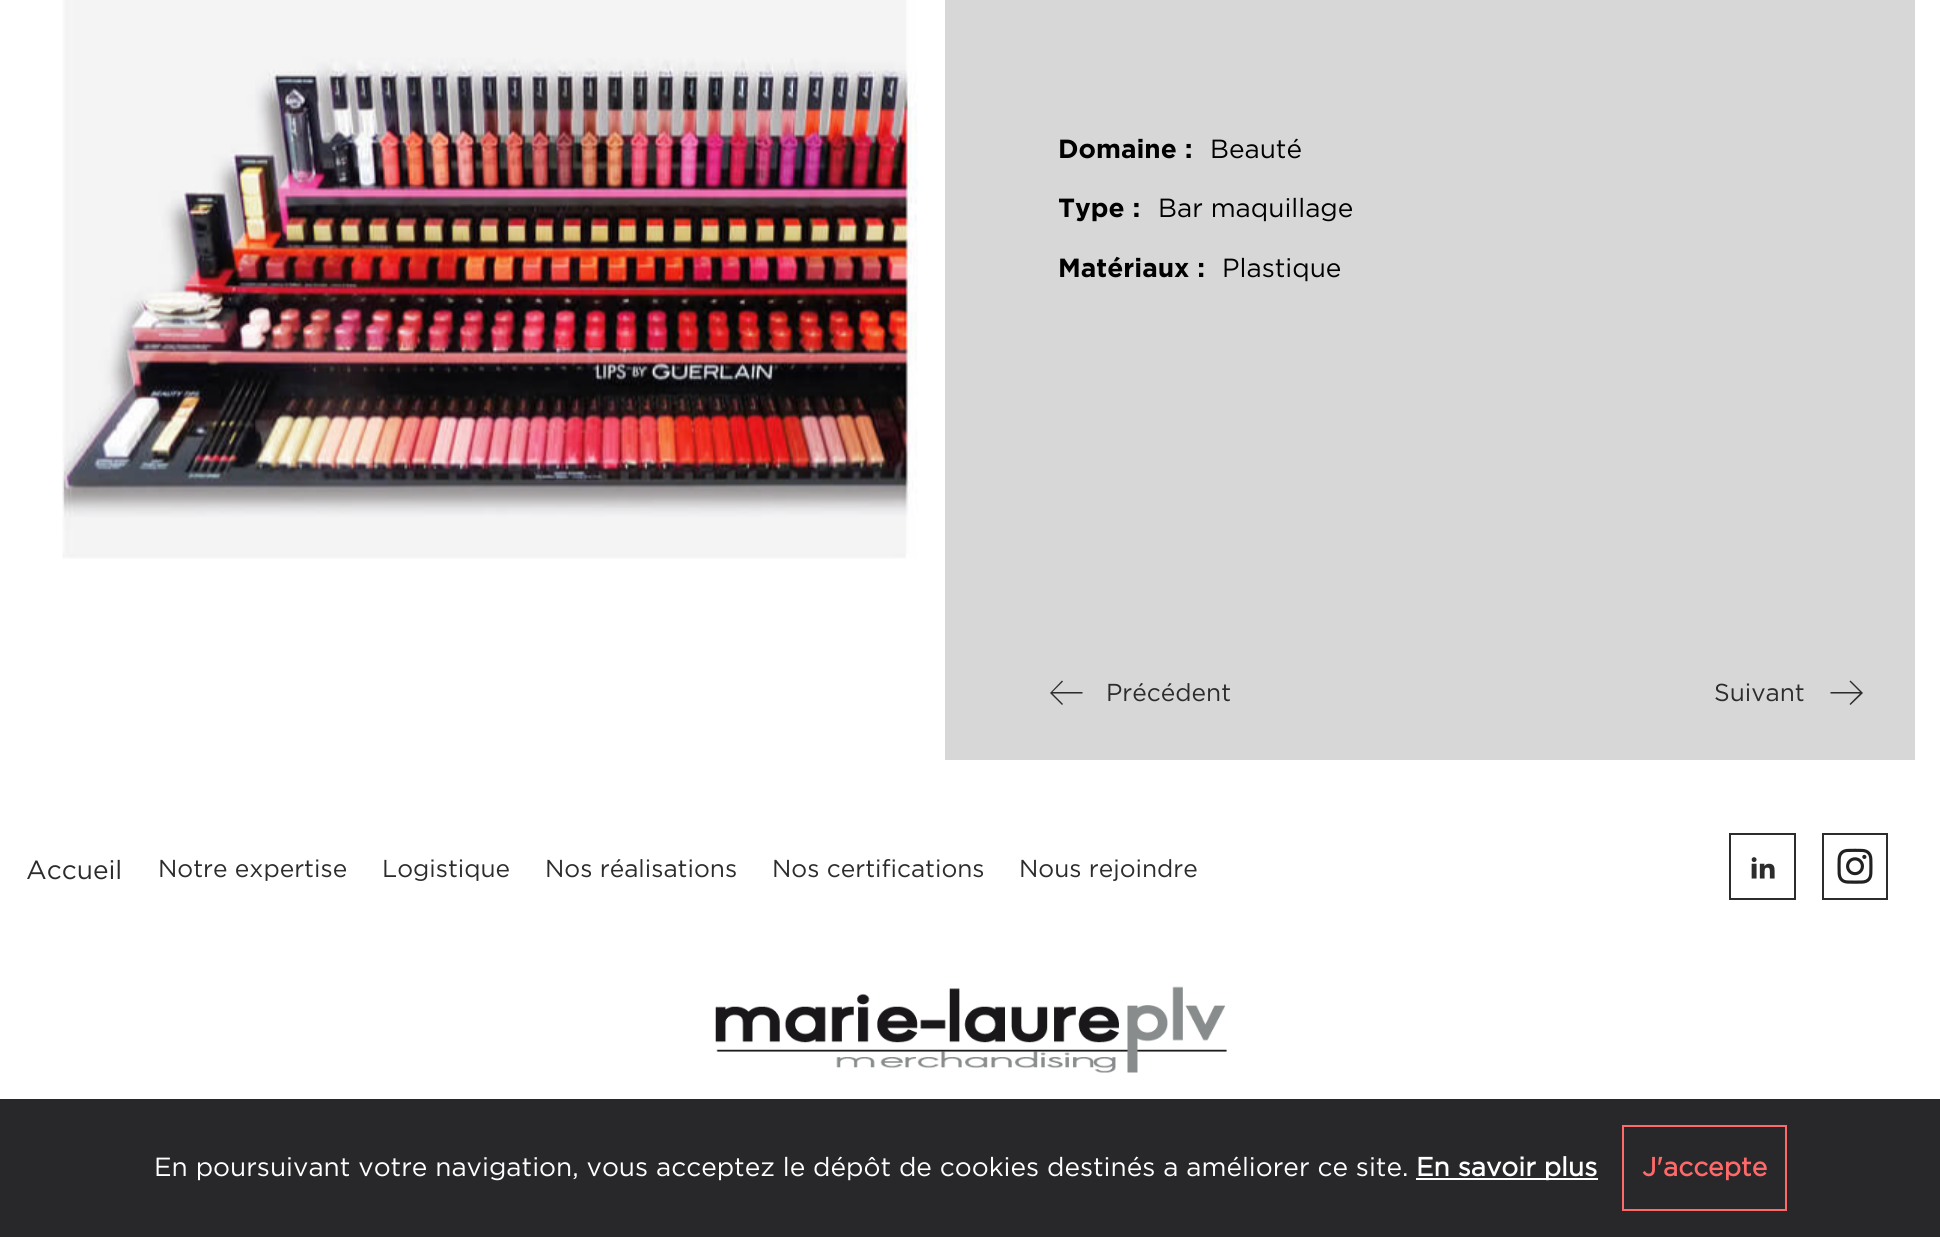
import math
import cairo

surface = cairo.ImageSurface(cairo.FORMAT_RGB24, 1940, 1237)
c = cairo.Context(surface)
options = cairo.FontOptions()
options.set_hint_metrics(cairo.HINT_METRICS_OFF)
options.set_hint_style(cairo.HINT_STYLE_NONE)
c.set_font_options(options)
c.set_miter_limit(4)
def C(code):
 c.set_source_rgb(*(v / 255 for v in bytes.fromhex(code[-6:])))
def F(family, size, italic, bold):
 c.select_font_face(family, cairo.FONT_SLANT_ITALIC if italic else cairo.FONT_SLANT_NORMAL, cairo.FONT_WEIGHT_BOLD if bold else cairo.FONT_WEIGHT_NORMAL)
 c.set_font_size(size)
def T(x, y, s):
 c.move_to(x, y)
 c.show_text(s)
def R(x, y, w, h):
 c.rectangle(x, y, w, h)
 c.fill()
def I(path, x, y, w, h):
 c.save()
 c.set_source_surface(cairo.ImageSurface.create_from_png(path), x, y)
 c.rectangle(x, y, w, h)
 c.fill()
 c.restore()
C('ffffff')
c.paint()
I('1.png',62,0,856,559)
C('d7d7d7')
R(945,0,970,760)
F('Gotham',26.25,0,1)
C('000000')
T(1058,158,'Domaine :')
F('Gotham',26.25,0,0)
T(1210,158,'Beauté')
c.save()
c.rectangle(1059,187,80,42)
c.clip()
F('Gotham',26.25,0,1)
T(1058,217,'Type :')
c.restore()
T(1158,217,'Bar maquillage')
F('Gotham',26.25,0,1)
T(1058,277,'Matériaux :')
F('Gotham',26.25,0,0)
T(1222,277,'Plastique')
C('2c2c2c')
c.new_path()
c.move_to(1050,693)
c.line_to(1062,705)
c.line_to(1063,704)
c.line_to(1052.5,693.5)
c.line_to(1082.5,693.5)
c.line_to(1082.5,692)
c.line_to(1052.5,692)
c.line_to(1063,681.5)
c.line_to(1062,680.5)
c.close_path()
c.fill()
F('Gotham',24.5,0,0)
T(1106,701,'Précédent')
T(1714,701,'Suivant')
c.new_path()
c.move_to(1863,693)
c.line_to(1850.5,680.5)
c.line_to(1849.5,681.5)
c.line_to(1860,692)
c.line_to(1830.5,692)
c.line_to(1830.5,693.5)
c.line_to(1860,693.5)
c.line_to(1849.5,704)
c.line_to(1850.5,705)
c.close_path()
c.fill()
F('Gotham',26.25,0,0)
T(26,879,'Accueil')
F('Gotham',24.5,0,0)
T(158,877,'Notre expertise')
T(382,877,'Logistique')
T(545,877,'Nos réalisations')
T(772,877,'Nos certifications')
T(1019,877,'Nous rejoindre')
c.rectangle(1730,834,65,65)
c.stroke()
I('2.png',1751,857,24,22)
c.rectangle(1823,834,64,65)
c.stroke()
I('3.png',1837,848,36,36)
I('4.png',715,986,512,87)
C('28272a')
R(0,1099,1940,138)
F('Gotham',26.25,0,0)
C('ffffff')
T(154,1176,'En poursuivant votre navigation, vous acceptez le dépôt de cookies destinés a améliorer ce site.')
R(1416,1178,182,2)
F('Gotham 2',26.25,0,1)
T(1416,1176,'En savoir plus')
c.rectangle(1623,1126,163,84)
C('ff6969')
c.stroke()
T(1642,1176,'J\'accepte')
surface.write_to_png('o.png')
